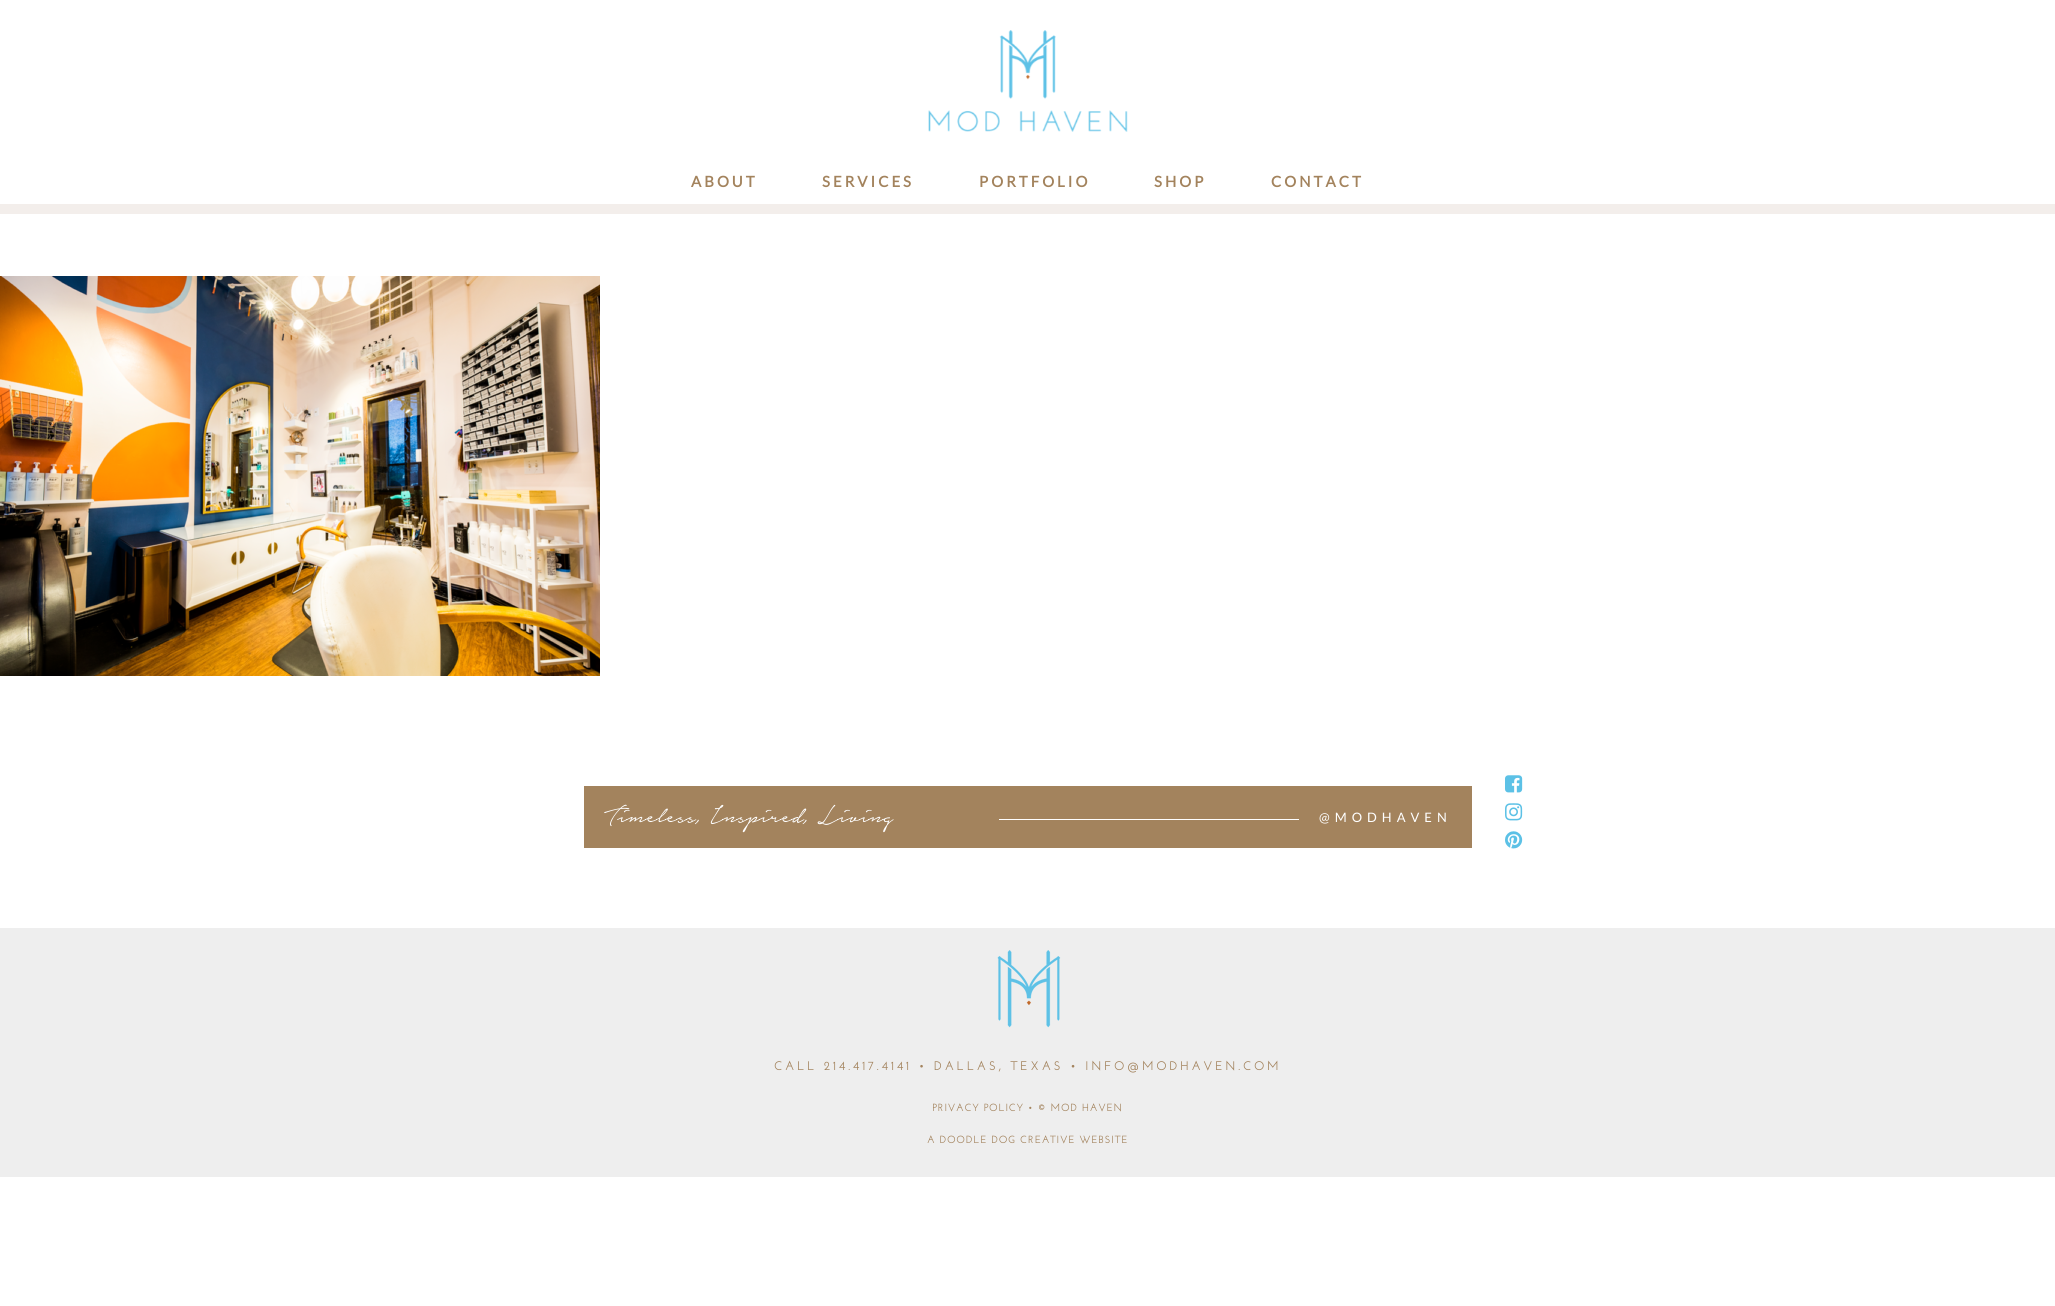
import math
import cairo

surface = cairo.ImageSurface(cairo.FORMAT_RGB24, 2055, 1306)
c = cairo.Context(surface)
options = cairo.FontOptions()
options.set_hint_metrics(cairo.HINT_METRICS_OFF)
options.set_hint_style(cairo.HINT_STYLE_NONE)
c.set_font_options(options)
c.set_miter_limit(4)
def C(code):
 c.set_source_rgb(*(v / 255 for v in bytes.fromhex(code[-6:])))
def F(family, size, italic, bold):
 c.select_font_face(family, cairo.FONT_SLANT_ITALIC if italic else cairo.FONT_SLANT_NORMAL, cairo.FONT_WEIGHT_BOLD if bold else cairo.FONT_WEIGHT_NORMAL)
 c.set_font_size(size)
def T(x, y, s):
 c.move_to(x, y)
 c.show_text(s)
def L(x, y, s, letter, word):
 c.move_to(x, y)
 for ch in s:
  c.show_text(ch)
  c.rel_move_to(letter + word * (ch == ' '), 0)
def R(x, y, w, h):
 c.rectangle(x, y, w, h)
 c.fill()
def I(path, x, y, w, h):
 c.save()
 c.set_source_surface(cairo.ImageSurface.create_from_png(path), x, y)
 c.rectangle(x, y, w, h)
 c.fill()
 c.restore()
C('ffffff')
c.paint()
I('1.png',928,30,200,102)
F('Lato',15,0,1)
C('a3835d')
L(691,187,'ABOUT',3,0)
L(822,187,'SERVICES',3,0)
L(979,187,'PORTFOLIO',3,0)
L(1154,187,'SHOP',3,0)
L(1271,187,'CONTACT',3,0)
C('f3eeeb')
R(0,204,2055,10)
I('2.png',0,276,600,400)
C('a3835d')
R(584,786,888,62)
F('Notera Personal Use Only',31,0,0)
C('ffffff')
T(604,822,'Timeless, Inspired, Living')
R(999,819,300,1)
F('Lato',13,0,0)
L(1319,822,'@MODHAVEN',5,0)
I('3.png',1505,775,18,18)
I('4.png',1505,803,18,18)
I('5.png',1505,831,18,18)
C('eeeeee')
R(0,928,2055,249)
I('6.png',997,950,64,78)
F('Josefin Sans',12,0,1)
C('a3835d')
L(774,1070,'CALL 214.417.4141 • DALLAS, TEXAS • INFO@MODHAVEN.COM',3,0)
F('Josefin Sans',10,0,1)
L(932,1111,'PRIVACY POLICY • © MOD HAVEN',1,0)
L(927,1143,'A DOODLE DOG CREATIVE WEBSITE',1,0)
surface.write_to_png('o.png')
